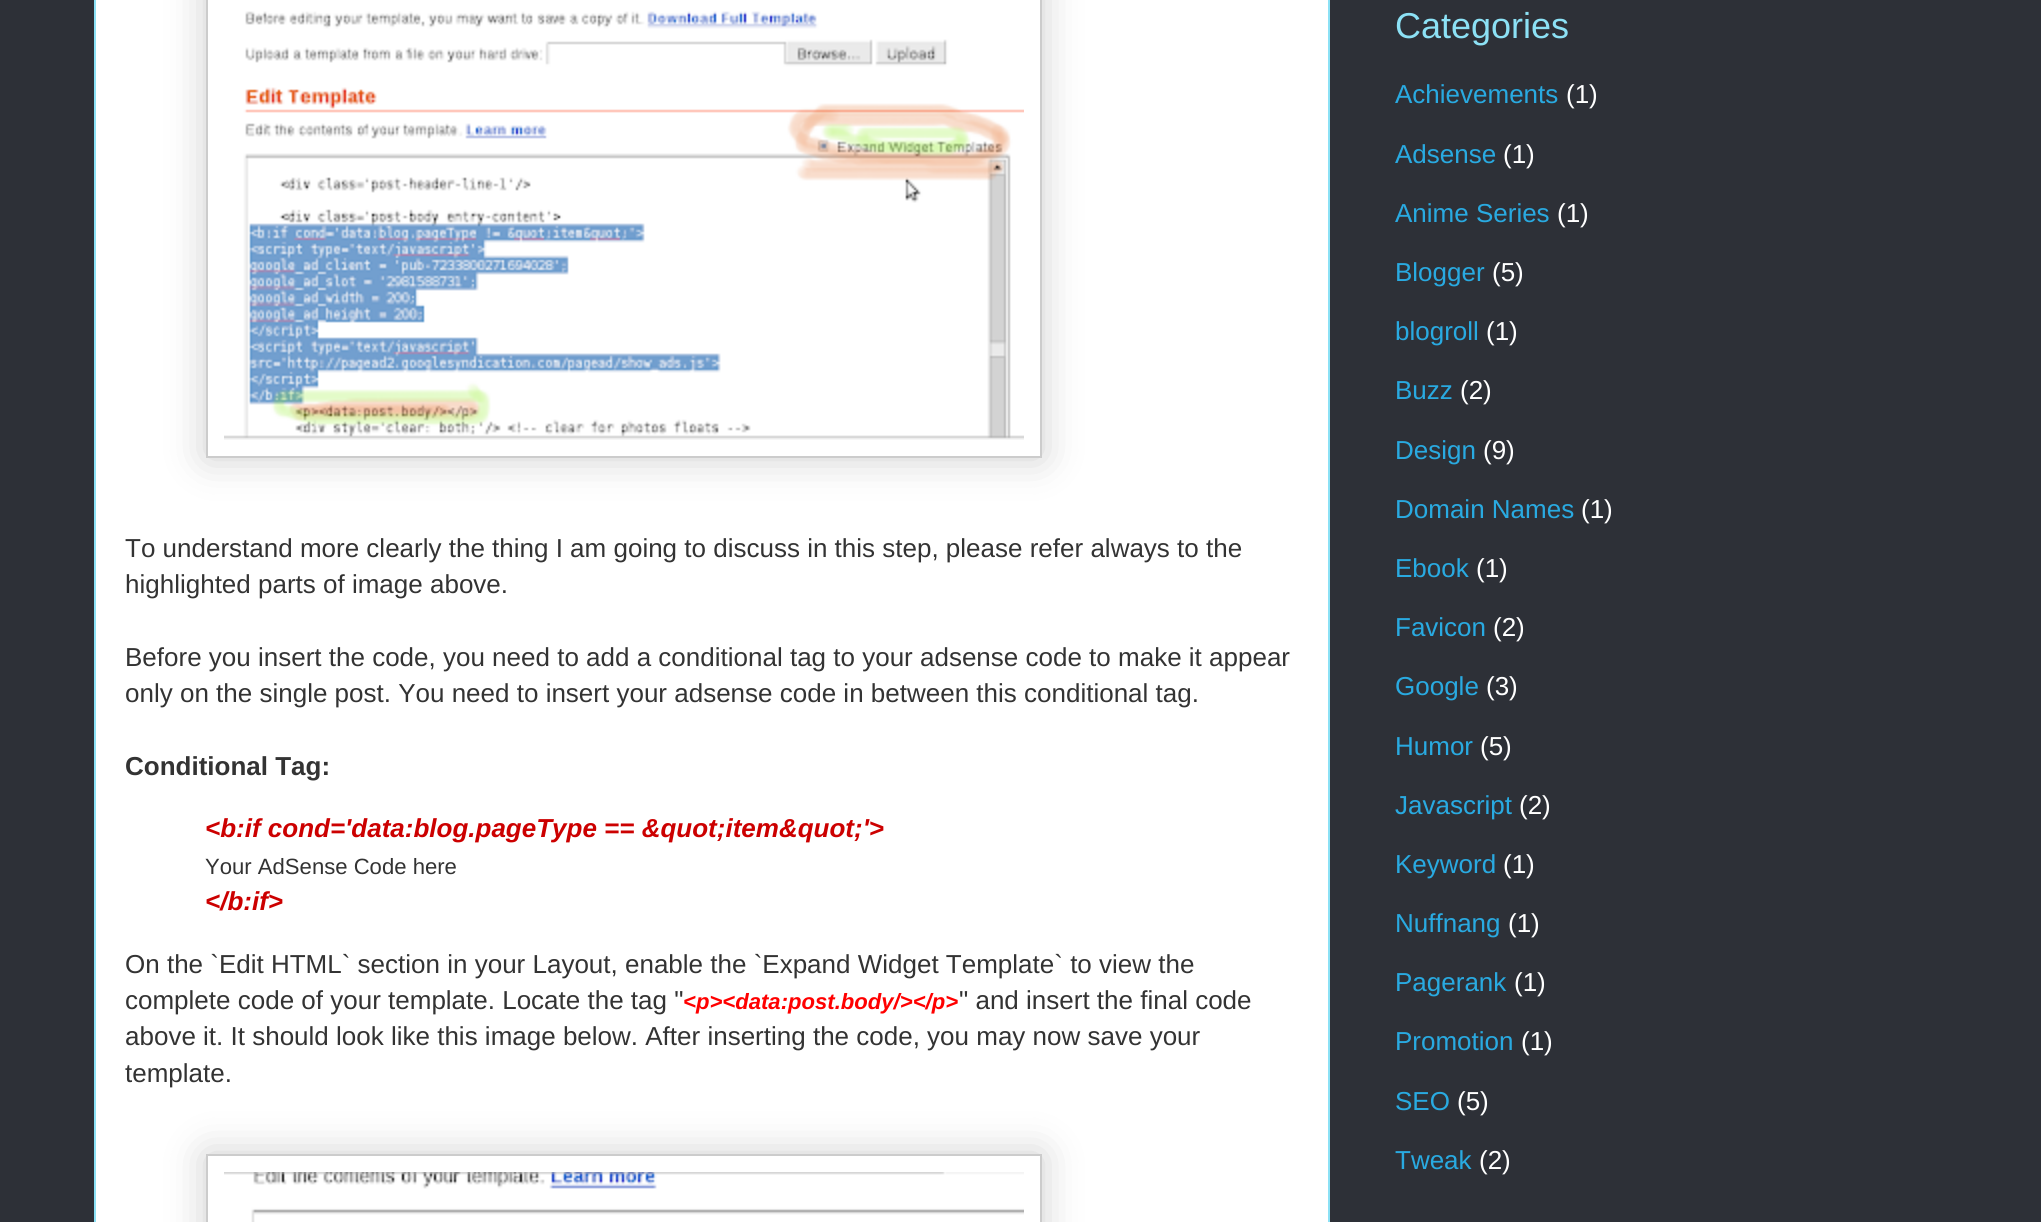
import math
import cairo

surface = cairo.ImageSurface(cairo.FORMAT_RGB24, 2041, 1222)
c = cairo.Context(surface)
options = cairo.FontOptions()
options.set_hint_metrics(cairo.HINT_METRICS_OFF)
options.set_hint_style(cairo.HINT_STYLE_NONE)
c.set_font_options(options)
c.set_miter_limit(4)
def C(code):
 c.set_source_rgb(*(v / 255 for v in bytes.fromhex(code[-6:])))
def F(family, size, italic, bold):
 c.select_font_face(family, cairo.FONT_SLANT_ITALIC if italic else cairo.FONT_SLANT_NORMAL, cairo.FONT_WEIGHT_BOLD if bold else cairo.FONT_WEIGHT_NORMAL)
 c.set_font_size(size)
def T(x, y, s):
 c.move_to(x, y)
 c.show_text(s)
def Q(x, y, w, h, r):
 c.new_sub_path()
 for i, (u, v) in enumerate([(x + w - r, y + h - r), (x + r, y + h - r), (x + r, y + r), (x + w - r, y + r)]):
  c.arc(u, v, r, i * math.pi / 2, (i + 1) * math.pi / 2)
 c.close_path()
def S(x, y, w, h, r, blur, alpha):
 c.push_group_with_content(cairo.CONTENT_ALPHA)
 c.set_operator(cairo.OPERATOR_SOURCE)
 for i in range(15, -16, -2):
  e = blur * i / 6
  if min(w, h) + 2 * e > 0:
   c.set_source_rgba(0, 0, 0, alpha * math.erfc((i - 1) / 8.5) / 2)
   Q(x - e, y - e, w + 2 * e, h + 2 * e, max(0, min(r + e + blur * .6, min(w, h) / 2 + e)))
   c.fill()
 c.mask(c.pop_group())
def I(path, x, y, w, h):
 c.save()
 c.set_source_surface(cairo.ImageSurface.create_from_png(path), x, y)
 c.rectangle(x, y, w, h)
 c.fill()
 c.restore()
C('2d3037')
c.paint()
C('ffffff')
c.rectangle(95,-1,1234,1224)
c.fill_preserve()
C('8ce1f5')
c.stroke()
c.save()
c.set_fill_rule(cairo.FILL_RULE_EVEN_ODD)
c.new_path()
c.move_to(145,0)
c.line_to(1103,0)
c.line_to(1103,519)
c.line_to(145,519)
c.close_path()
c.move_to(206,-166)
c.line_to(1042,-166)
c.line_to(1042,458)
c.line_to(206,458)
c.close_path()
c.clip()
C('000000')
S(206,-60,836,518,0,20,.2)
c.restore()
c.rectangle(207,-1,834,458)
C('cccccc')
c.stroke()
I('1.png',224,11,800,429)
F('Liberation Sans',26,0,0)
C('333333')
T(125,557,'To understand more clearly the thing I am going to discuss in this step, please refer always to the')
T(125,593,'highlighted parts of image above.')
T(125,666,'Before you insert the code, you need to add a conditional tag to your adsense code to make it appear')
T(125,702,'only on the single post. You need to insert your adsense code in between this conditional tag.')
F('Liberation Sans',26,0,1)
T(125,775,'Conditional Tag:')
F('Liberation Sans',26,1,1)
C('cc0000')
T(205,837,'<b:if cond=\'data:blog.pageType == &quot;item&quot;\'>')
F('Liberation Sans',22.1,0,0)
C('333333')
T(205,874,'Your AdSense Code here')
F('Liberation Sans',26,1,1)
C('cc0000')
T(205,910,'</b:if>')
F('Liberation Sans',26,0,0)
C('333333')
T(125,973,'On the `Edit HTML` section in your Layout, enable the `Expand Widget Template` to view the')
T(125,1009,'complete code of your template. Locate the tag "')
F('Liberation Sans',22.1,1,1)
C('ff0000')
T(683,1009,'<p><data:post.body/></p>')
F('Liberation Sans',26,0,0)
C('333333')
T(959,1009,'" and insert the final code')
T(125,1045,'above it. It should look like this image below. After inserting the code, you may now save your')
T(125,1082,'template.')
c.save()
c.set_fill_rule(cairo.FILL_RULE_EVEN_ODD)
c.new_path()
c.move_to(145,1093)
c.line_to(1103,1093)
c.line_to(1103,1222)
c.line_to(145,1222)
c.close_path()
c.move_to(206,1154)
c.line_to(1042,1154)
c.line_to(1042,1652)
c.line_to(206,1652)
c.close_path()
c.clip()
C('000000')
S(206,1154,836,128,0,20,.2)
c.restore()
c.rectangle(207,1155,834,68)
C('cccccc')
c.stroke()
I('2.png',224,1172,800,50)
F('Liberation Sans',36,0,0)
C('8ce1f5')
T(1395,38,'Categories')
F('Liberation Sans',26,0,0)
C('29aae1')
T(1395,103,'Achievements')
C('ffffff')
T(1566,103,'(1)')
C('29aae1')
T(1395,163,'Adsense')
C('ffffff')
T(1503,163,'(1)')
C('29aae1')
T(1395,222,'Anime Series')
C('ffffff')
T(1557,222,'(1)')
C('29aae1')
T(1395,281,'Blogger')
C('ffffff')
T(1492,281,'(5)')
C('29aae1')
T(1395,340,'blogroll')
C('ffffff')
T(1486,340,'(1)')
C('29aae1')
T(1395,399,'Buzz')
C('ffffff')
T(1460,399,'(2)')
C('29aae1')
T(1395,459,'Design')
C('ffffff')
T(1483,459,'(9)')
C('29aae1')
T(1395,518,'Domain Names')
C('ffffff')
T(1581,518,'(1)')
C('29aae1')
T(1395,577,'Ebook')
C('ffffff')
T(1476,577,'(1)')
C('29aae1')
T(1395,636,'Favicon')
C('ffffff')
T(1493,636,'(2)')
C('29aae1')
T(1395,695,'Google')
C('ffffff')
T(1486,695,'(3)')
C('29aae1')
T(1395,755,'Humor')
C('ffffff')
T(1480,755,'(5)')
C('29aae1')
T(1395,814,'Javascript')
C('ffffff')
T(1519,814,'(2)')
C('29aae1')
T(1395,873,'Keyword')
C('ffffff')
T(1503,873,'(1)')
C('29aae1')
T(1395,932,'Nuffnang')
C('ffffff')
T(1508,932,'(1)')
C('29aae1')
T(1395,991,'Pagerank')
C('ffffff')
T(1514,991,'(1)')
C('29aae1')
T(1395,1050,'Promotion')
C('ffffff')
T(1521,1050,'(1)')
C('29aae1')
T(1395,1110,'SEO')
C('ffffff')
T(1457,1110,'(5)')
C('29aae1')
T(1395,1169,'Tweak')
C('ffffff')
T(1479,1169,'(2)')
surface.write_to_png('o.png')
